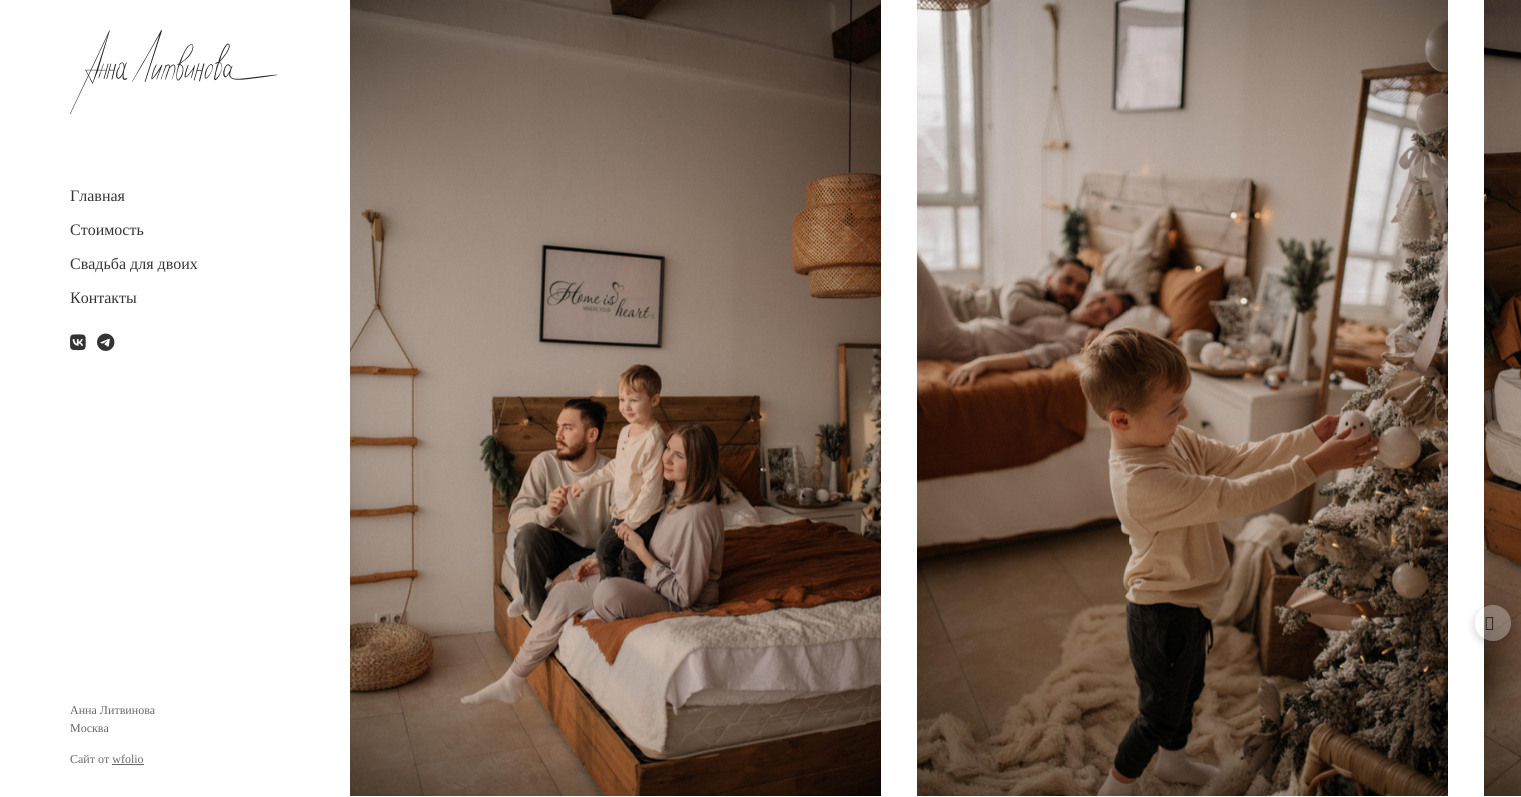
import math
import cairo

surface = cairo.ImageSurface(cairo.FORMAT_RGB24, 1521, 797)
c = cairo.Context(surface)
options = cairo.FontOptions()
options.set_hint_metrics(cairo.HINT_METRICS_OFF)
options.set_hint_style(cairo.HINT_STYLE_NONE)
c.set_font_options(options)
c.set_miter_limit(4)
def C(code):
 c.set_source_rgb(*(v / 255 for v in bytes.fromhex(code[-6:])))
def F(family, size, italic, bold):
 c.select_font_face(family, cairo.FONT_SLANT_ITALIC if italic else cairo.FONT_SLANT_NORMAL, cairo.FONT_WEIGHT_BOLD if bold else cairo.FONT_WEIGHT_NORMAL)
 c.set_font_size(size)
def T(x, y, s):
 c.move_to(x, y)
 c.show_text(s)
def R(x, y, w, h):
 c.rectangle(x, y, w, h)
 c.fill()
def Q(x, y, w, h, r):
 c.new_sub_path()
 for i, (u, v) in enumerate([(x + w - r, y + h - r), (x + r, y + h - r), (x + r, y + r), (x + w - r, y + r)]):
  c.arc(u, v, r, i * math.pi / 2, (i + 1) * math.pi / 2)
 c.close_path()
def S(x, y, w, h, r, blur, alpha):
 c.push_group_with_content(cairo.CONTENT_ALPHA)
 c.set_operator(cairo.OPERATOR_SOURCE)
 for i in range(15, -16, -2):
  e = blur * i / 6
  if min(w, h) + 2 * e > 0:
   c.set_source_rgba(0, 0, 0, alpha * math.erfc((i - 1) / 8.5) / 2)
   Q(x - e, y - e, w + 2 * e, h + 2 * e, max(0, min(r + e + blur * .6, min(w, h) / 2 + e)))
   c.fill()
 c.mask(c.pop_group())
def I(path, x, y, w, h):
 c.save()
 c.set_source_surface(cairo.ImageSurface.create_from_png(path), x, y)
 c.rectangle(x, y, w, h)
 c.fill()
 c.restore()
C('ffffff')
c.paint()
I('1.png',70,30,208,84)
F('Liberation Serif',16,0,0)
C('353535')
T(70,201,'Главная')
T(70,235,'Стоимость')
T(70,269,'Свадьба для двоих')
T(70,303,'Контакты')
I('2.png',70,334,16,17)
I('3.png',97,333,18,18)
F('Liberation Serif',12,0,0)
C('676767')
T(70,714,'Анна Литвинова')
T(70,732,'Москва')
T(70,763,'Сайт от wfolio')
R(112,764,32,1)
I('4.png',350,0,531,796)
I('5.png',917,0,531,796)
I('6.png',1484,0,37,796)
c.save()
c.set_fill_rule(cairo.FILL_RULE_EVEN_ODD)
c.new_path()
c.move_to(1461,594)
c.line_to(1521,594)
c.line_to(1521,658)
c.line_to(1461,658)
c.close_path()
c.move_to(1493,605)
c.curve_to(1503,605,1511,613,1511,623)
c.curve_to(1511,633,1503,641,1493,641)
c.curve_to(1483,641,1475,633,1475,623)
c.curve_to(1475,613,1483,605,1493,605)
c.close_path()
c.clip()
C('000000')
S(1474,607,38,38,19,4,.15)
c.restore()
c.set_source_rgba(1,1,1,0.3)
c.arc(1493,623,18,0,2 * math.pi)
c.fill()
I('7.png',1485,617,9,13)
surface.write_to_png('o.png')
